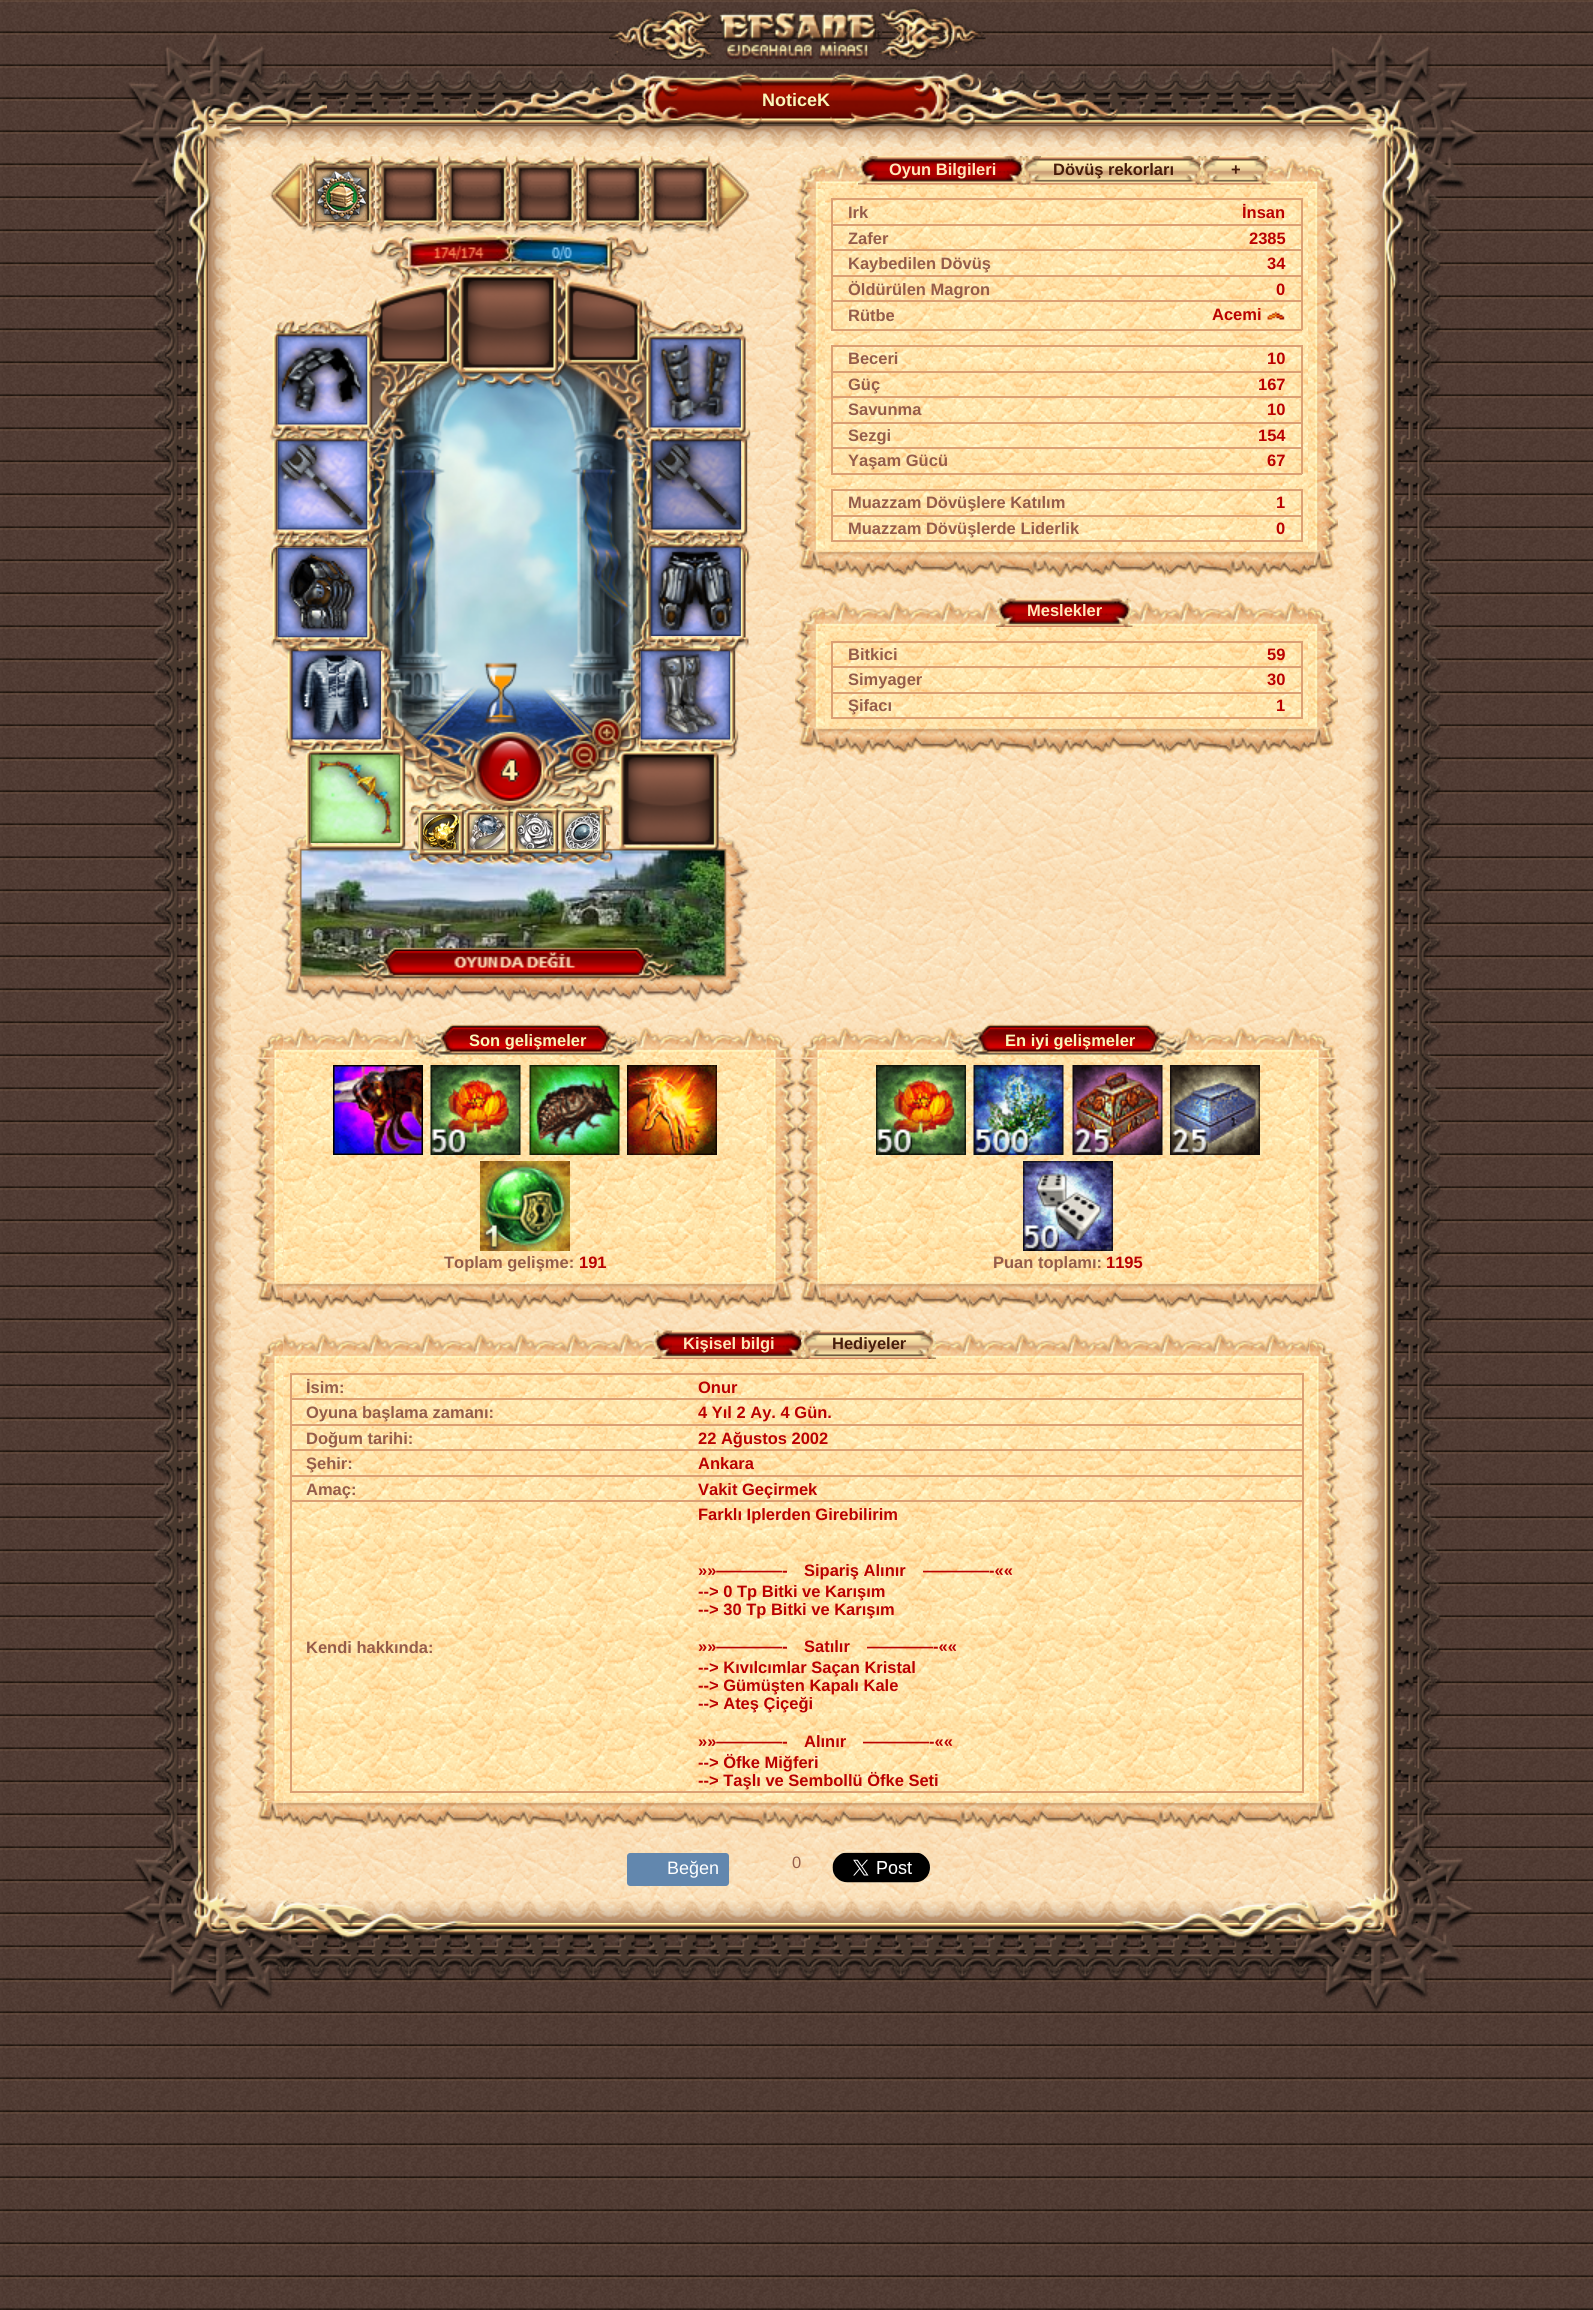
import math
import cairo

surface = cairo.ImageSurface(cairo.FORMAT_RGB24, 1593, 2310)
c = cairo.Context(surface)
options = cairo.FontOptions()
options.set_hint_metrics(cairo.HINT_METRICS_OFF)
options.set_hint_style(cairo.HINT_STYLE_NONE)
c.set_font_options(options)
c.set_miter_limit(4)
def C(code):
 c.set_source_rgb(*(v / 255 for v in bytes.fromhex(code[-6:])))
def F(family, size, italic, bold):
 c.select_font_face(family, cairo.FONT_SLANT_ITALIC if italic else cairo.FONT_SLANT_NORMAL, cairo.FONT_WEIGHT_BOLD if bold else cairo.FONT_WEIGHT_NORMAL)
 c.set_font_size(size)
def T(x, y, s):
 c.move_to(x, y)
 c.show_text(s)
def R(x, y, w, h):
 c.rectangle(x, y, w, h)
 c.fill()
def I(path, x, y, w, h):
 c.save()
 c.set_source_surface(cairo.ImageSurface.create_from_png(path), x, y)
 c.rectangle(x, y, w, h)
 c.fill()
 c.restore()
C('ffffff')
c.paint()
I('1.png',0,0,1593,2310)
I('2.png',609,7,377,53)
I('4.png',208,70,1177,55)
I('8.png',153,124,56,1799)
I('9.png',1384,124,57,1799)
I('10.png',208,124,1177,1791)
I('11.png',208,124,23,1799)
I('12.png',1362,124,23,1799)
I('13.png',226,124,1141,23)
I('3.png',117,34,210,263)
I('5.png',474,73,289,58)
I('6.png',762,73,357,58)
F('Liberation Sans',18,0,1)
C('faf7b9')
T(762,106,'NoticeK')
I('7.png',1260,34,218,264)
I('14.png',226,1900,1141,23)
I('15.png',270,162,38,69)
I('16.png',309,156,66,78)
I('17.png',315,169,53,53)
I('18.png',376,156,67,78)
I('19.png',444,156,66,78)
I('20.png',511,156,67,78)
I('21.png',579,156,66,78)
I('22.png',646,156,67,78)
I('23.png',712,161,38,72)
I('25.png',277,335,91,90)
I('26.png',651,338,90,90)
I('27.png',277,440,91,90)
I('28.png',652,440,89,90)
I('29.png',277,547,91,91)
I('30.png',651,547,90,89)
I('31.png',292,650,89,90)
I('32.png',640,650,91,90)
I('33.png',310,754,91,89)
I('34.png',418,812,46,38)
I('35.png',465,812,45,38)
I('36.png',513,812,45,38)
I('37.png',563,812,43,38)
I('24.png',268,235,483,769)
I('38.png',799,164,26,25)
I('39.png',825,158,483,31)
I('40.png',858,156,25,29)
I('41.png',877,156,149,29)
F('Liberation Sans',16.5,0,1)
C('ffe9ba')
T(889,175,'Oyun Bilgileri')
I('42.png',1021,156,25,29)
I('43.png',1041,156,164,29)
C('461c0b')
T(1053,175,'Dövüş rekorları')
I('44.png',1200,156,25,29)
I('45.png',1219,156,52,29)
T(1231,175,'+')
I('46.png',1308,164,26,25)
I('47.png',795,189,30,362)
I('48.png',825,189,483,362)
C('db9f73')
R(831,198,471,2)
R(1301,198,2,132)
R(831,329,471,2)
R(831,198,2,132)
C('955c4a')
T(848,218,'Irk')
C('ba0000')
T(1242,218,'İnsan')
C('955c4a')
T(848,244,'Zafer')
C('db9f73')
R(831,224,471,2)
C('ba0000')
T(1249,244,'2385')
C('955c4a')
T(848,269,'Kaybedilen Dövüş')
C('db9f73')
R(831,249,471,2)
C('ba0000')
T(1267,269,'34')
C('955c4a')
T(848,295,'Öldürülen Magron')
C('db9f73')
R(831,275,471,2)
C('ba0000')
T(1276,295,'0')
C('955c4a')
T(848,321,'Rütbe')
C('db9f73')
R(831,300,471,2)
C('ba0000')
T(1212,320,'Acemi')
I('49.png',1267,311,18,9)
C('db9f73')
R(831,345,471,2)
R(1301,345,2,129)
R(831,473,471,2)
R(831,345,2,129)
C('955c4a')
T(848,364,'Beceri')
C('ba0000')
T(1267,364,'10')
C('955c4a')
T(848,390,'Güç')
C('db9f73')
R(831,371,471,2)
C('ba0000')
T(1258,390,'167')
C('955c4a')
T(848,415,'Savunma')
C('db9f73')
R(831,396,471,2)
C('ba0000')
T(1267,415,'10')
C('955c4a')
T(848,441,'Sezgi')
C('db9f73')
R(831,422,471,2)
C('ba0000')
T(1258,441,'154')
C('955c4a')
T(848,466,'Yaşam Gücü')
C('db9f73')
R(831,447,471,2)
C('ba0000')
T(1267,466,'67')
C('db9f73')
R(831,489,471,2)
R(1301,489,2,53)
R(831,540,471,2)
R(831,489,2,53)
C('955c4a')
T(848,508,'Muazzam Dövüşlere Katılım')
C('ba0000')
T(1276,508,'1')
C('955c4a')
T(848,534,'Muazzam Dövüşlerde Liderlik')
C('db9f73')
R(831,515,471,2)
C('ba0000')
T(1276,534,'0')
I('50.png',1308,189,30,362)
I('51.png',799,550,26,25)
I('52.png',825,550,483,28)
I('53.png',1308,550,26,25)
I('54.png',799,607,26,25)
I('55.png',825,601,483,31)
I('56.png',996,598,25,29)
I('57.png',1015,598,118,29)
C('ffe9ba')
T(1027,616,'Meslekler')
I('58.png',1308,607,26,25)
I('59.png',795,631,30,97)
I('60.png',825,631,483,97)
C('db9f73')
R(831,641,471,2)
R(1301,641,2,78)
R(831,717,471,2)
R(831,641,2,78)
C('955c4a')
T(848,660,'Bitkici')
C('ba0000')
T(1267,660,'59')
C('955c4a')
T(848,685,'Simyager')
C('db9f73')
R(831,666,471,2)
C('ba0000')
T(1267,685,'30')
C('955c4a')
T(848,711,'Şifacı')
C('db9f73')
R(831,692,471,2)
C('ba0000')
T(1276,711,'1')
I('61.png',1308,631,30,97)
I('62.png',799,727,26,25)
I('63.png',825,727,483,28)
I('64.png',1308,727,26,25)
I('65.png',257,1033,27,25)
I('66.png',283,1027,484,32)
I('67.png',412,1024,41,34)
I('68.png',453,1024,144,31)
C('faf7b9')
T(469,1046,'Son gelişmeler')
I('69.png',597,1024,41,34)
I('70.png',766,1033,27,25)
I('71.png',253,1059,31,194)
I('72.png',283,1059,484,194)
I('73.png',333,1065,90,90)
I('74.png',430,1065,91,90)
I('75.png',529,1065,91,90)
I('76.png',627,1065,90,90)
I('77.png',480,1161,90,90)
I('78.png',766,1059,31,194)
I('79.png',253,1252,31,31)
I('80.png',283,1252,484,31)
C('955c4a')
T(444,1268,'Toplam gelişme:')
C('ba0000')
T(579,1268,'191')
I('81.png',766,1252,31,31)
I('82.png',257,1282,27,25)
I('83.png',283,1282,484,28)
I('84.png',766,1282,27,25)
I('85.png',800,1033,27,25)
I('86.png',826,1027,484,32)
I('87.png',949,1024,41,34)
I('88.png',990,1024,156,31)
C('faf7b9')
T(1005,1046,'En iyi gelişmeler')
I('89.png',1146,1024,41,34)
I('90.png',1309,1033,27,25)
I('91.png',796,1059,31,194)
I('92.png',826,1059,484,194)
I('93.png',876,1065,90,90)
I('94.png',973,1065,91,90)
I('95.png',1072,1065,91,90)
I('96.png',1170,1065,90,90)
I('97.png',1023,1161,90,90)
I('98.png',1309,1059,31,194)
I('99.png',796,1252,31,31)
I('100.png',826,1252,484,31)
C('955c4a')
T(993,1268,'Puan toplamı:')
C('ba0000')
T(1106,1268,'1195')
I('101.png',1309,1252,31,31)
I('102.png',800,1282,27,25)
I('103.png',826,1282,484,28)
I('104.png',1309,1282,27,25)
I('105.png',257,1339,27,25)
I('106.png',283,1333,1027,31)
I('107.png',652,1330,25,29)
I('108.png',672,1330,133,29)
C('ffe9ba')
T(683,1349,'Kişisel bilgi')
I('109.png',801,1330,25,29)
I('110.png',820,1330,116,29)
C('461c0b')
T(832,1349,'Hediyeler')
I('111.png',1309,1339,27,25)
I('112.png',253,1363,31,439)
I('113.png',283,1363,1027,439)
C('db9f73')
R(290,1373,1014,2)
R(1302,1373,2,420)
R(290,1791,1014,2)
R(290,1373,2,420)
C('955c4a')
T(306,1393,'İsim:')
C('ba0000')
T(698,1393,'Onur')
C('955c4a')
T(306,1418,'Oyuna başlama zamanı:')
C('db9f73')
R(290,1398,1014,2)
C('ba0000')
T(698,1418,'4 Yıl 2 Ay. 4 Gün.')
C('955c4a')
T(306,1444,'Doğum tarihi:')
C('db9f73')
R(290,1424,1014,2)
C('ba0000')
T(698,1444,'22 Ağustos 2002')
C('955c4a')
T(306,1469,'Şehir:')
C('db9f73')
R(290,1449,1014,2)
C('ba0000')
T(698,1469,'Ankara')
C('955c4a')
T(306,1495,'Amaç:')
C('db9f73')
R(290,1475,1014,2)
C('ba0000')
T(698,1495,'Vakit Geçirmek')
C('955c4a')
T(306,1653,'Kendi hakkında:')
C('db9f73')
R(290,1500,1014,2)
C('ba0000')
T(698,1520,'Farklı Iplerden Girebilirim')
T(698,1576,'»»————-')
T(804,1576,'Sipariş Alınır')
T(923,1576,'————-««')
T(698,1597,'--> 0 Tp Bitki ve Karışım')
T(698,1615,'--> 30 Tp Bitki ve Karışım')
T(698,1652,'»»————-')
T(804,1652,'Satılır')
T(867,1652,'————-««')
T(698,1673,'--> Kıvılcımlar Saçan Kristal')
T(698,1691,'--> Gümüşten Kapalı Kale')
T(698,1709,'--> Ateş Çiçeği')
T(698,1747,'»»————-')
T(804,1747,'Alınır')
T(863,1747,'————-««')
T(698,1768,'--> Öfke Miğferi')
T(698,1786,'--> Taşlı ve Sembollü Öfke Seti')
I('114.png',1309,1363,31,439)
I('121.png',208,1923,1177,58)
I('119.png',123,1822,354,189)
I('115.png',257,1801,27,25)
I('120.png',1114,1822,359,189)
I('116.png',283,1801,1027,28)
I('117.png',1309,1801,27,25)
C('6287ae')
c.new_path()
c.move_to(630,1853)
c.line_to(668,1853)
c.line_to(668,1886)
c.line_to(630,1886)
c.curve_to(628.5,1886,627,1884.5,627,1883)
c.line_to(627,1856)
c.curve_to(627,1854.5,628.5,1853,630,1853)
c.close_path()
c.fill()
c.new_path()
c.move_to(668,1853)
c.line_to(726,1853)
c.curve_to(727.5,1853,729,1854.5,729,1856)
c.line_to(729,1883)
c.curve_to(729,1884.5,727.5,1886,726,1886)
c.line_to(668,1886)
c.close_path()
c.fill()
F('Liberation Sans',18,0,0)
C('ffffff')
T(667,1874,'Beğen')
F('Liberation Sans',16.5,0,0)
C('955c4a')
T(792,1868,'0')
I('118.png',832,1852,98,31)
surface.write_to_png('o.png')
